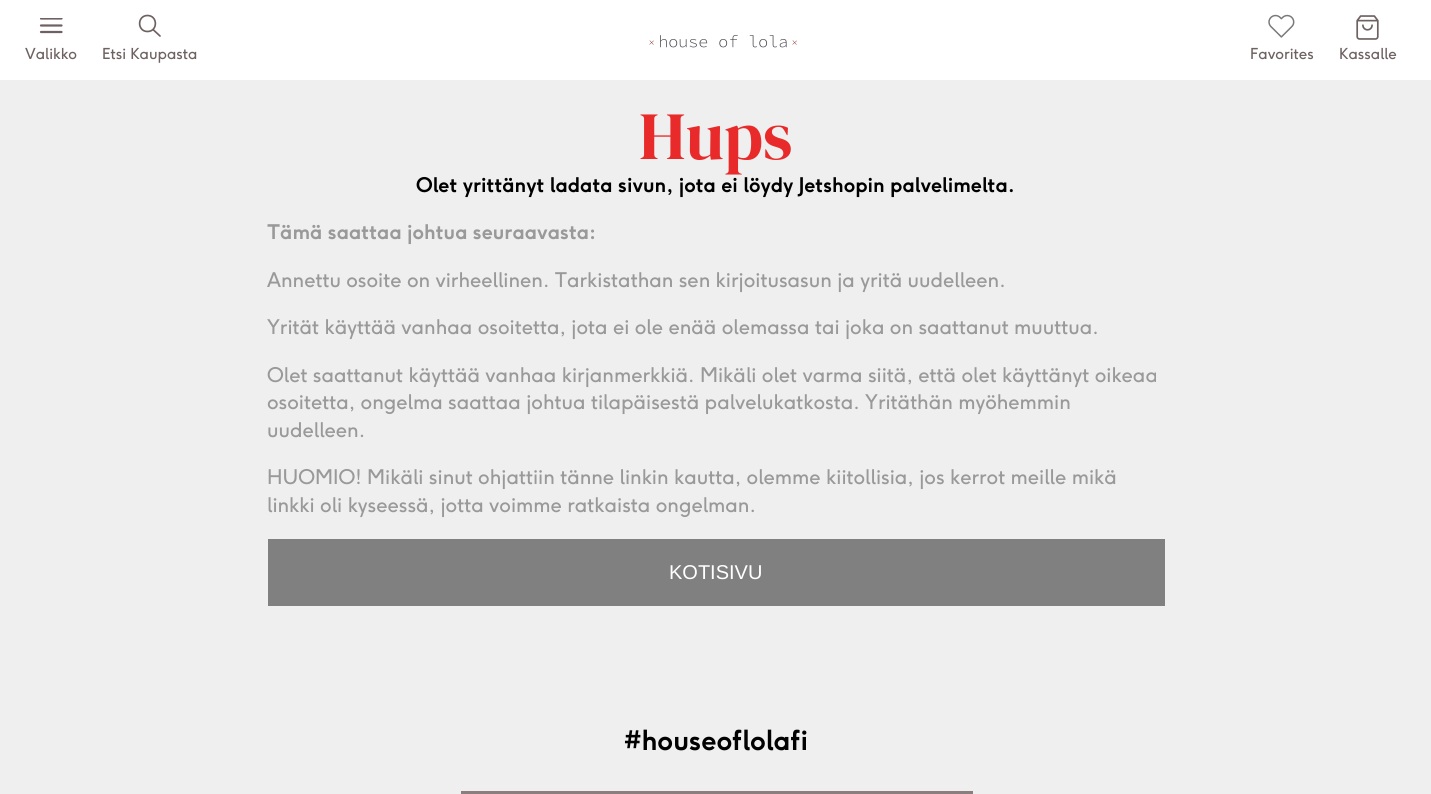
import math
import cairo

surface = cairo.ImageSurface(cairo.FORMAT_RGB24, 1431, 794)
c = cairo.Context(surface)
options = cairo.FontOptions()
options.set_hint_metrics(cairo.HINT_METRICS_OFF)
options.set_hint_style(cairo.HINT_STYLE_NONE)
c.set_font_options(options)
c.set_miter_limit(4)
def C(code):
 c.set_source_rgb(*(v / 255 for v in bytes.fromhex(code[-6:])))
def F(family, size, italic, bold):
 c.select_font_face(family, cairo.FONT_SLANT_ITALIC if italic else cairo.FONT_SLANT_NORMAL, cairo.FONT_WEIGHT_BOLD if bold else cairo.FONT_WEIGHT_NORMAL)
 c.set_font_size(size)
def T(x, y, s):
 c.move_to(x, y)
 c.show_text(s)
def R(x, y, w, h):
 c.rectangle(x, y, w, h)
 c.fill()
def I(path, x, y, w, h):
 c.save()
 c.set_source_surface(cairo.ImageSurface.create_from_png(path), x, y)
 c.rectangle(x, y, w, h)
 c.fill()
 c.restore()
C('ffffff')
c.paint()
I('1.png',649,35,148,13)
c.save()
c.rectangle(40,18,23,22)
c.clip()
c.new_path()
c.move_to(41,18.5)
c.line_to(61.5,18.5)
C('6e6161')
c.set_line_width(2.2)
c.set_line_cap(cairo.LINE_CAP_ROUND)
c.stroke()
c.restore()
c.new_path()
c.move_to(41,25.5)
c.line_to(61.5,25.5)
c.move_to(41,32)
c.line_to(61.5,32)
C('6e6161')
c.set_line_width(2.2)
c.set_line_cap(cairo.LINE_CAP_ROUND)
c.stroke()
F('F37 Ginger',15,0,0)
T(25,59,'Valikko')
c.new_path()
c.move_to(147.5,31.5)
c.curve_to(158,31.5,158,15.5,147.5,15.5)
c.curve_to(137,15.5,137,31.5,147.5,31.5)
c.close_path()
c.move_to(160,36)
c.line_to(153,29.5)
c.set_line_width(1.7)
c.set_line_join(cairo.LINE_JOIN_ROUND)
c.stroke()
T(102,59,'Etsi Kaupasta')
I('2.png',1268,14,27,24)
T(1250,59,'Favorites')
I('3.png',1356,15,23,25)
T(1339,59,'Kassalle')
C('efefef')
R(0,80,1431,714)
F('DM Serif Display',67.5,0,0)
C('e82a2a')
T(639,159,'Hups')
F('F37 Ginger',20,0,1)
C('000000')
T(416,192,'Olet yrittänyt ladata sivun, jota ei löydy Jetshopin palvelimelta.')
C('999999')
T(267,239,'Tämä saattaa johtua seuraavasta:')
F('F37 Ginger',20,0,0)
T(267,287,'Annettu osoite on virheellinen. Tarkistathan sen kirjoitusasun ja yritä uudelleen.')
T(267,334,'Yrität käyttää vanhaa osoitetta, jota ei ole enää olemassa tai joka on saattanut muuttua.')
T(267,382,'Olet saattanut käyttää vanhaa kirjanmerkkiä. Mikäli olet varma siitä, että olet käyttänyt oikeaa')
T(267,409,'osoitetta, ongelma saattaa johtua tilapäisestä palvelukatkosta. Yritäthän myöhemmin')
T(267,437,'uudelleen.')
T(267,484,'HUOMIO! Mikäli sinut ohjattiin tänne linkin kautta, olemme kiitollisia, jos kerrot meille mikä')
T(267,512,'linkki oli kyseessä, jotta voimme ratkaista ongelman.')
C('808080')
R(268,539,897,67)
F('Liberation Sans',20,0,0)
C('ffffff')
T(669,579,'KOTISIVU')
F('F37 Ginger',27.5,0,1)
C('000000')
T(624,750,'#houseoflolafi')
C('8c7e7e')
R(461,791,512,3)
surface.write_to_png('o.png')
